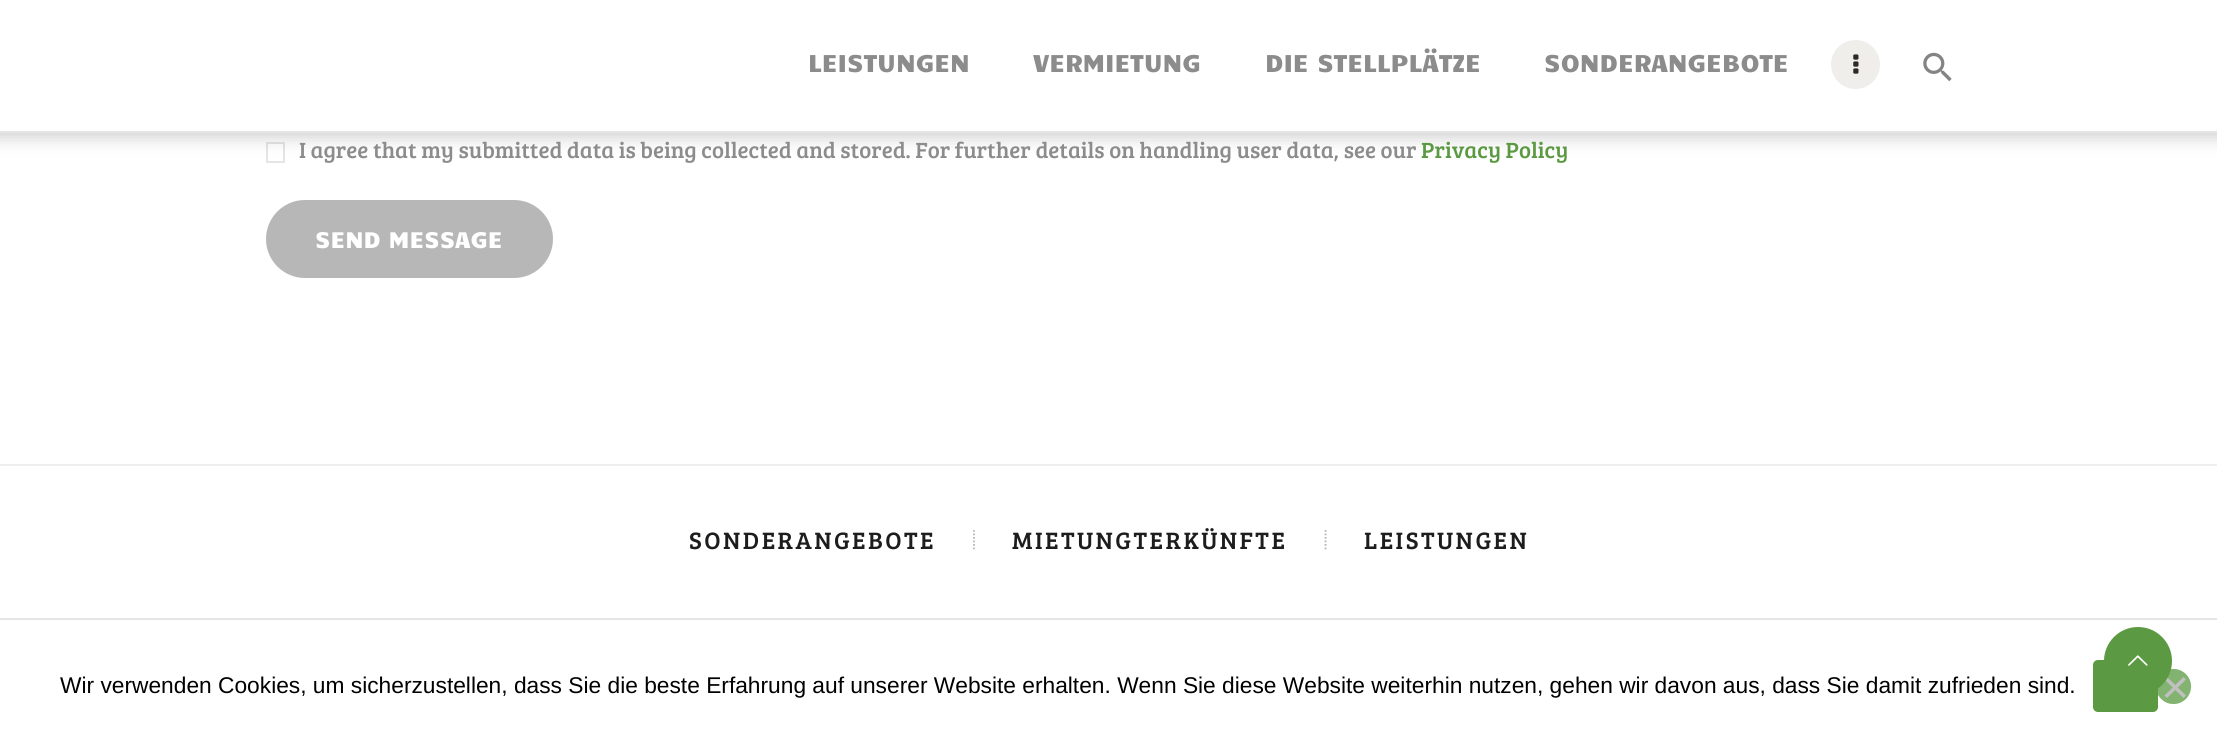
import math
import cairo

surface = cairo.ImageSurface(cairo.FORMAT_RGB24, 2217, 740)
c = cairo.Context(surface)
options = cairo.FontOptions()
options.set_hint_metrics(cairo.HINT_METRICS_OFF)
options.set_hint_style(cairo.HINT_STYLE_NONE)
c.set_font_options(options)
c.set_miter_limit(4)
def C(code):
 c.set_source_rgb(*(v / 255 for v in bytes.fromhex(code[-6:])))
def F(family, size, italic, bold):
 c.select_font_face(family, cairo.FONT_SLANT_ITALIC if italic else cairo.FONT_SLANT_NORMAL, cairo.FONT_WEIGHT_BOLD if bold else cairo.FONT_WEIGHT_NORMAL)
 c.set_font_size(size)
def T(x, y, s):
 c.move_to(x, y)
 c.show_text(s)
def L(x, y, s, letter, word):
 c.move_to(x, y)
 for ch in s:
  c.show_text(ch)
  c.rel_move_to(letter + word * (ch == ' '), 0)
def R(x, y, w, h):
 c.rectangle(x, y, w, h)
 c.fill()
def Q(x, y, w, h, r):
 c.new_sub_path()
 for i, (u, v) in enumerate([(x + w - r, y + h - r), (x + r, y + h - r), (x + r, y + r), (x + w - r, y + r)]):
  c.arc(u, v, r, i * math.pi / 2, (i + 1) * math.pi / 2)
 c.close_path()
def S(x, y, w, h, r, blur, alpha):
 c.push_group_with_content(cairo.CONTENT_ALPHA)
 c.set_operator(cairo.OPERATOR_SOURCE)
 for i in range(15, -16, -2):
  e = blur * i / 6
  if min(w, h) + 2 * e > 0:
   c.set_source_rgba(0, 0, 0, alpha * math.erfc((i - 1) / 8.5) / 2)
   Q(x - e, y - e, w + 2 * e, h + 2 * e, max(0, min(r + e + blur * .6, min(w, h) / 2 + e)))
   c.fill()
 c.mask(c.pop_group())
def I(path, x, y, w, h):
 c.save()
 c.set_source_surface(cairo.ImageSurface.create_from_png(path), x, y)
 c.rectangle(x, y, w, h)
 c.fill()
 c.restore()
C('ffffff')
c.paint()
c.rectangle(267,143,17,19)
C('e5e5e5')
c.stroke()
C('000000')
S(-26,4,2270,133,0,9,.2)
C('ffffff')
R(0,0,2217,131)
C('e5e5e5')
R(0,131,2217,2)
F('Candal',24.5,0,0)
C('8c8c8c')
T(808,72,'LEISTUNGEN')
T(1033,72,'VERMIETUNG')
T(1265,72,'DIE STELLPLÄTZE')
T(1544,72,'SONDERANGEBOTE')
C('efeeea')
c.new_path()
c.arc(1855.5,64.5,24.5,0,2 * math.pi)
c.fill()
I('1.png',1853,54,6,20)
I('2.png',1923,52,29,30)
F('Bree Serif',22.75,0,0)
C('8c8c8c')
T(299,158,'I agree that my submitted data is being collected and stored. For further details on handling user data, see our')
C('5b9a42')
T(1421,158,'Privacy Policy')
C('b7b7b7')
Q(266,200,287,78,39)
c.fill()
F('Candal',22.75,0,0)
C('ffffff')
T(315,248,'SEND MESSAGE')
C('eeeeee')
R(0,464,2217,2)
F('Bree Serif',24.5,0,0)
C('1d1d1d')
L(689,549,'SONDERANGEBOTE',2.5,0)
c.new_path()
c.move_to(974,530)
c.line_to(974,549.5)
C('b7b7b7')
c.set_line_width(1.8)
c.set_dash([1.75,1.75])
c.stroke()
C('1d1d1d')
L(1012,549,'MIETUNGTERKÜNFTE',2.5,0)
c.new_path()
c.move_to(1325.5,530)
c.line_to(1325.5,549.5)
C('b7b7b7')
c.stroke()
C('1d1d1d')
L(1364,549,'LEISTUNGEN',2.5,0)
C('e5e5e5')
R(0,618,2217,2)
F('Liberation Sans',22.75,0,0)
C('000000')
T(60,693,'Wir verwenden Cookies, um sicherzustellen, dass Sie die beste Erfahrung auf unserer Website erhalten. Wenn Sie diese Website weiterhin nutzen, gehen wir davon aus, dass Sie damit zufrieden sind.')
C('5b9a42')
Q(2093,660,65,52,5)
c.fill()
c.set_source_rgba(0.357,0.604,0.259,0.5)
c.arc(2173.5,686.5,17.5,0,2 * math.pi)
c.fill()
c.arc(2173.5,686.5,17.5,0,2 * math.pi)
c.fill()
C('c0c0c0')
c.new_path()
c.move_to(2183.5,677)
c.line_to(2186,679.5)
c.line_to(2167,698)
c.line_to(2164.5,695.5)
c.close_path()
c.fill()
c.new_path()
c.move_to(2164.5,679.5)
c.line_to(2167,677)
c.line_to(2186,695.5)
c.line_to(2183.5,698)
c.close_path()
c.fill()
C('5b9a42')
c.arc(2138,661,34,0,2 * math.pi)
c.fill()
I('3.png',2128,655,20,11)
surface.write_to_png('o.png')
